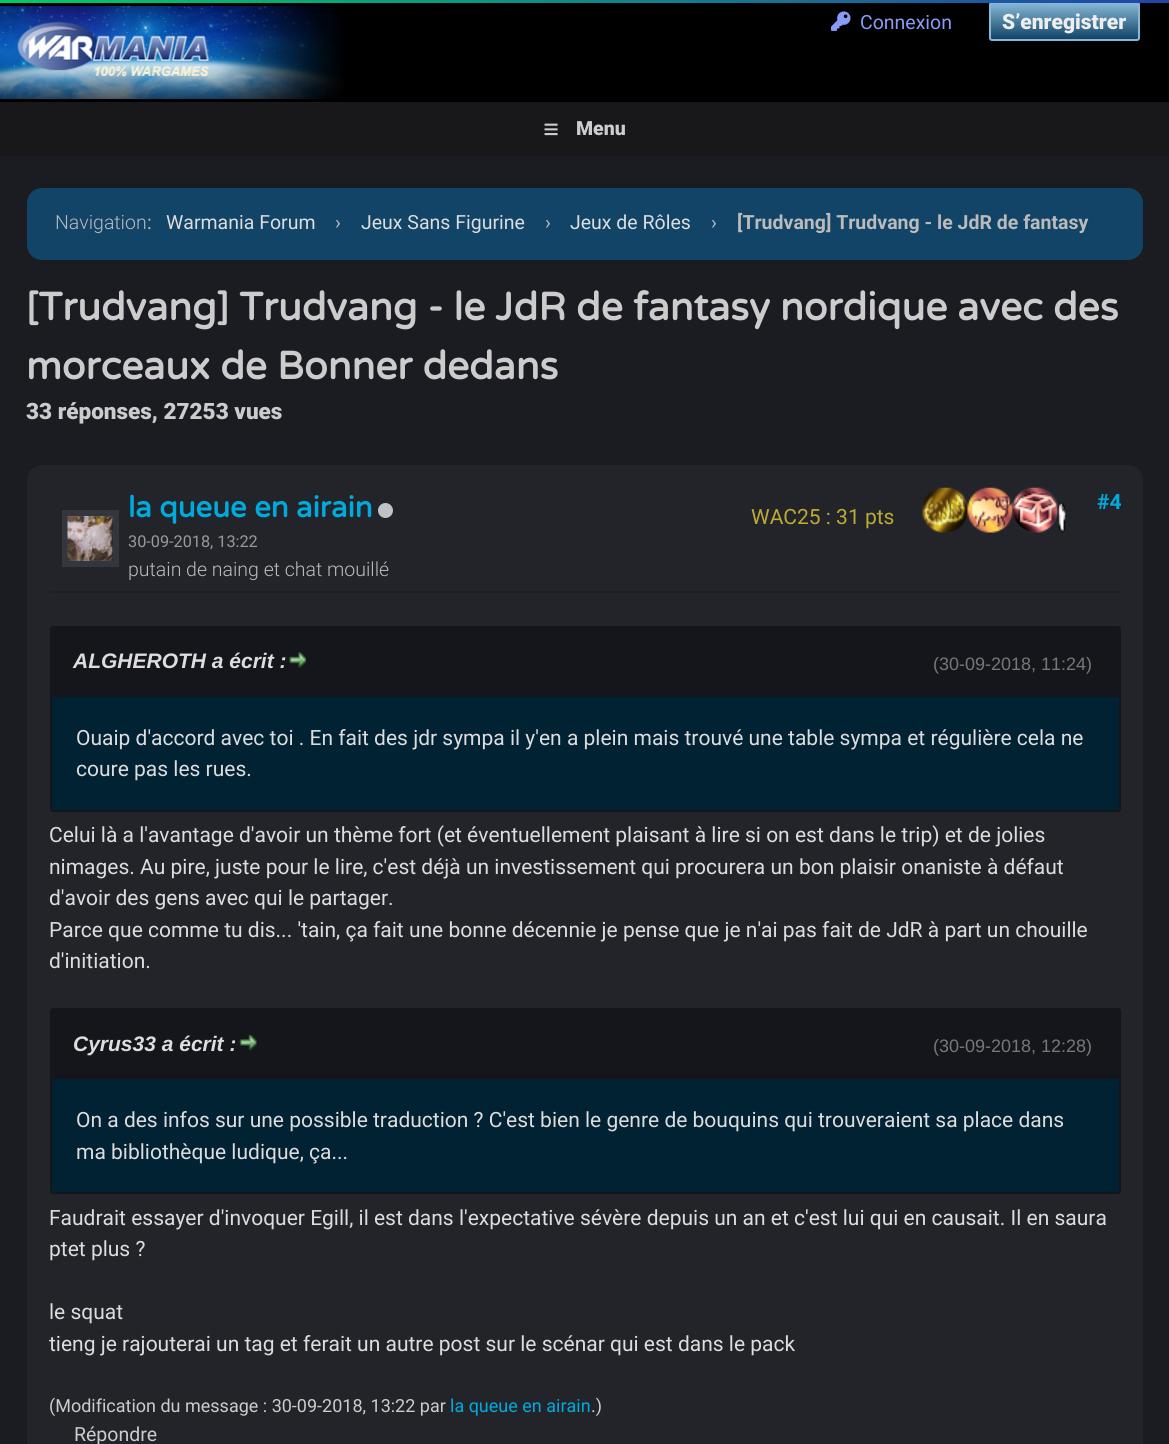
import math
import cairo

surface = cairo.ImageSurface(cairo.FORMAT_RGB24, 1169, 1444)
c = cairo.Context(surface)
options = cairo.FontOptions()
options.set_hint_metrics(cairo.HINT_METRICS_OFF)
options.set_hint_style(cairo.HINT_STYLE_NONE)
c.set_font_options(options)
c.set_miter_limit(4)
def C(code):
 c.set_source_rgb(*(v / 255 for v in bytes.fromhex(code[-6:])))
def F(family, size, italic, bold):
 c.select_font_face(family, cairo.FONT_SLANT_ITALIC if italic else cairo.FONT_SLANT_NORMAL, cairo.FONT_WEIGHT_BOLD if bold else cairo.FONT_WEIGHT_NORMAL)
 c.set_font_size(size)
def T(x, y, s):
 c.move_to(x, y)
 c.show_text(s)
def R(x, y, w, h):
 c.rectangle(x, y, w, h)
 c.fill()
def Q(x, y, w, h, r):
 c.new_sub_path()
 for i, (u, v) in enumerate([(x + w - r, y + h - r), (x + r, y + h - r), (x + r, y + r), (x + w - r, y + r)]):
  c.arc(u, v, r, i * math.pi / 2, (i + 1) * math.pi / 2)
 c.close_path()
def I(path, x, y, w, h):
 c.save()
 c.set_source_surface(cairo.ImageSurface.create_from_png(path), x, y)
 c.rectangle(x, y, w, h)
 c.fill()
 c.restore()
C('1b1c22')
c.paint()
gradient = cairo.LinearGradient(0,1.5,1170,1.5)
gradient.add_color_stop_rgba(0,0,0.8,0.4,1)
gradient.add_color_stop_rgba(1,0.133,0.267,0.667,1)
c.set_source(gradient)
R(0,0,1169,3)
C('000000')
R(0,3,1169,99)
I('1.png',0,6,345,93)
I('2.png',831,11,20,20)
F('Roboto',19.5,0,0)
C('899bf7')
T(860,29,'Connexion')
c.save()
Q(989,2,151,39,3)
c.clip()
gradient = cairo.LinearGradient(1064,3,1064,39)
gradient.add_color_stop_rgba(0,0.529,0.722,0.843,1)
gradient.add_color_stop_rgba(1,0.067,0.267,0.4,1)
c.set_source(gradient)
R(989,3,151,36)
c.restore()
c.save()
c.rectangle(0,3,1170,99)
c.clip()
Q(990,3,149,37,2)
C('87b8d7')
c.stroke()
c.restore()
F('Roboto Black',21,0,0)
C('eeeeee')
T(1002,29,'S’enregistrer')
C('18181a')
R(0,102,1169,54)
I('3.png',544,123,14,13)
F('Roboto Black',19.5,0,0)
C('cccccc')
T(576,135,'Menu')
C('114466')
Q(27,188,1116,72,15)
c.fill()
F('Roboto Light',19.5,0,0)
C('bbbbbb')
T(55,229,'Navigation')
F('Roboto',19.5,0,0)
T(147,229,':')
C('dddddd')
T(166,229,'Warmania Forum')
C('bbbbbb')
T(335,229,'›')
C('dddddd')
T(361,229,'Jeux Sans Figurine')
C('bbbbbb')
T(545,229,'›')
C('dddddd')
T(570,229,'Jeux de Rôles')
C('bbbbbb')
T(711,229,'›')
F('Roboto',19.5,0,1)
T(737,229,'[Trudvang] Trudvang - le JdR de fantasy')
F('Varela Round',39,0,1)
C('cccccc')
T(26,320,'[Trudvang] Trudvang - le JdR de fantasy nordique avec des')
T(26,379,'morceaux de Bonner dedans')
F('Roboto Black',22.5,0,0)
T(26,419,'33 réponses, 27253 vues')
C('23242a')
Q(27,465,1116,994,15)
c.fill()
F('Varela Round',29.25,0,1)
C('00aadd')
T(128,517,'la queue en airain')
C('bdc3c7')
c.new_path()
c.arc(385.5,510.5,7.5,0,2 * math.pi)
c.fill()
F('Roboto',16.25,0,0)
C('999999')
T(128,547,'30-09-2018, 13:22')
F('Roboto Light',19.5,0,0)
C('bbbbbb')
T(128,576,'putain de naing et chat mouillé')
F('Roboto',21,0,0)
C('bbaa33')
T(751,524,'WAC25 : 31 pts')
I('4.png',922,487,46,46)
I('5.png',967,487,46,46)
I('6.png',1012,487,46,46)
I('7.png',1057,502,10,31)
F('Roboto',21,0,1)
C('00aadd')
T(1097,509,'#4')
C('1e1f24')
R(50,591,1071,2)
C('002233')
Q(51,627,1069,184,2)
c.fill_preserve()
C('15161b')
c.stroke()
R(52,628,1067,67)
R(51,695,1068,2)
F('Liberation Sans',21,1,1)
C('dddddd')
T(73,668,'ALGHEROTH a écrit :')
I('8.png',289,652,17,16)
F('Liberation Sans',18,0,0)
C('777777')
T(933,670,'(30-09-2018, 11:24)')
F('Roboto',21,0,0)
C('dddddd')
T(76,745,'Ouaip d\'accord avec toi . En fait des jdr sympa il y\'en a plein mais trouvé une table sympa et régulière cela ne')
T(76,776,'coure pas les rues.')
T(49,842,'Celui là a l\'avantage d\'avoir un thème fort (et éventuellement plaisant à lire si on est dans le trip) et de jolies')
T(49,874,'nimages. Au pire, juste pour le lire, c\'est déjà un investissement qui procurera un bon plaisir onaniste à défaut')
T(49,905,'d\'avoir des gens avec qui le partager.')
T(49,937,'Parce que comme tu dis... \'tain, ça fait une bonne décennie je pense que je n\'ai pas fait de JdR à part un chouille')
T(49,968,'d\'initiation.')
C('002233')
Q(51,1009,1069,184,2)
c.fill_preserve()
C('15161b')
c.stroke()
R(52,1010,1067,69)
F('Liberation Sans',21,1,1)
C('dddddd')
T(73,1051,'Cyrus33 a écrit :')
I('9.png',239,1034,18,17)
F('Liberation Sans',18,0,0)
C('777777')
T(933,1052,'(30-09-2018, 12:28)')
F('Roboto',21,0,0)
C('dddddd')
T(76,1127,'On a des infos sur une possible traduction ? C\'est bien le genre de bouquins qui trouveraient sa place dans')
T(76,1159,'ma bibliothèque ludique, ça...')
T(49,1225,'Faudrait essayer d\'invoquer Egill, il est dans l\'expectative sévère depuis un an et c\'est lui qui en causait. Il en saura')
T(49,1256,'ptet plus ?')
T(49,1319,'le squat')
T(49,1351,'tieng je rajouterai un tag et ferait un autre post sur le scénar qui est dans le pack')
F('Roboto',18,0,0)
C('cccccc')
T(49,1412,'(Modification du message : 30-09-2018, 13:22 par')
C('00aadd')
T(450,1412,'la queue en airain')
C('cccccc')
T(591,1412,'.)')
F('Roboto',19.5,0,0)
T(74,1441,'Répondre')
c.rectangle(65,513,51,51)
C('34363f')
c.set_line_width(6)
c.stroke()
I('10.png',67,516,46,45)
surface.write_to_png('o.png')
